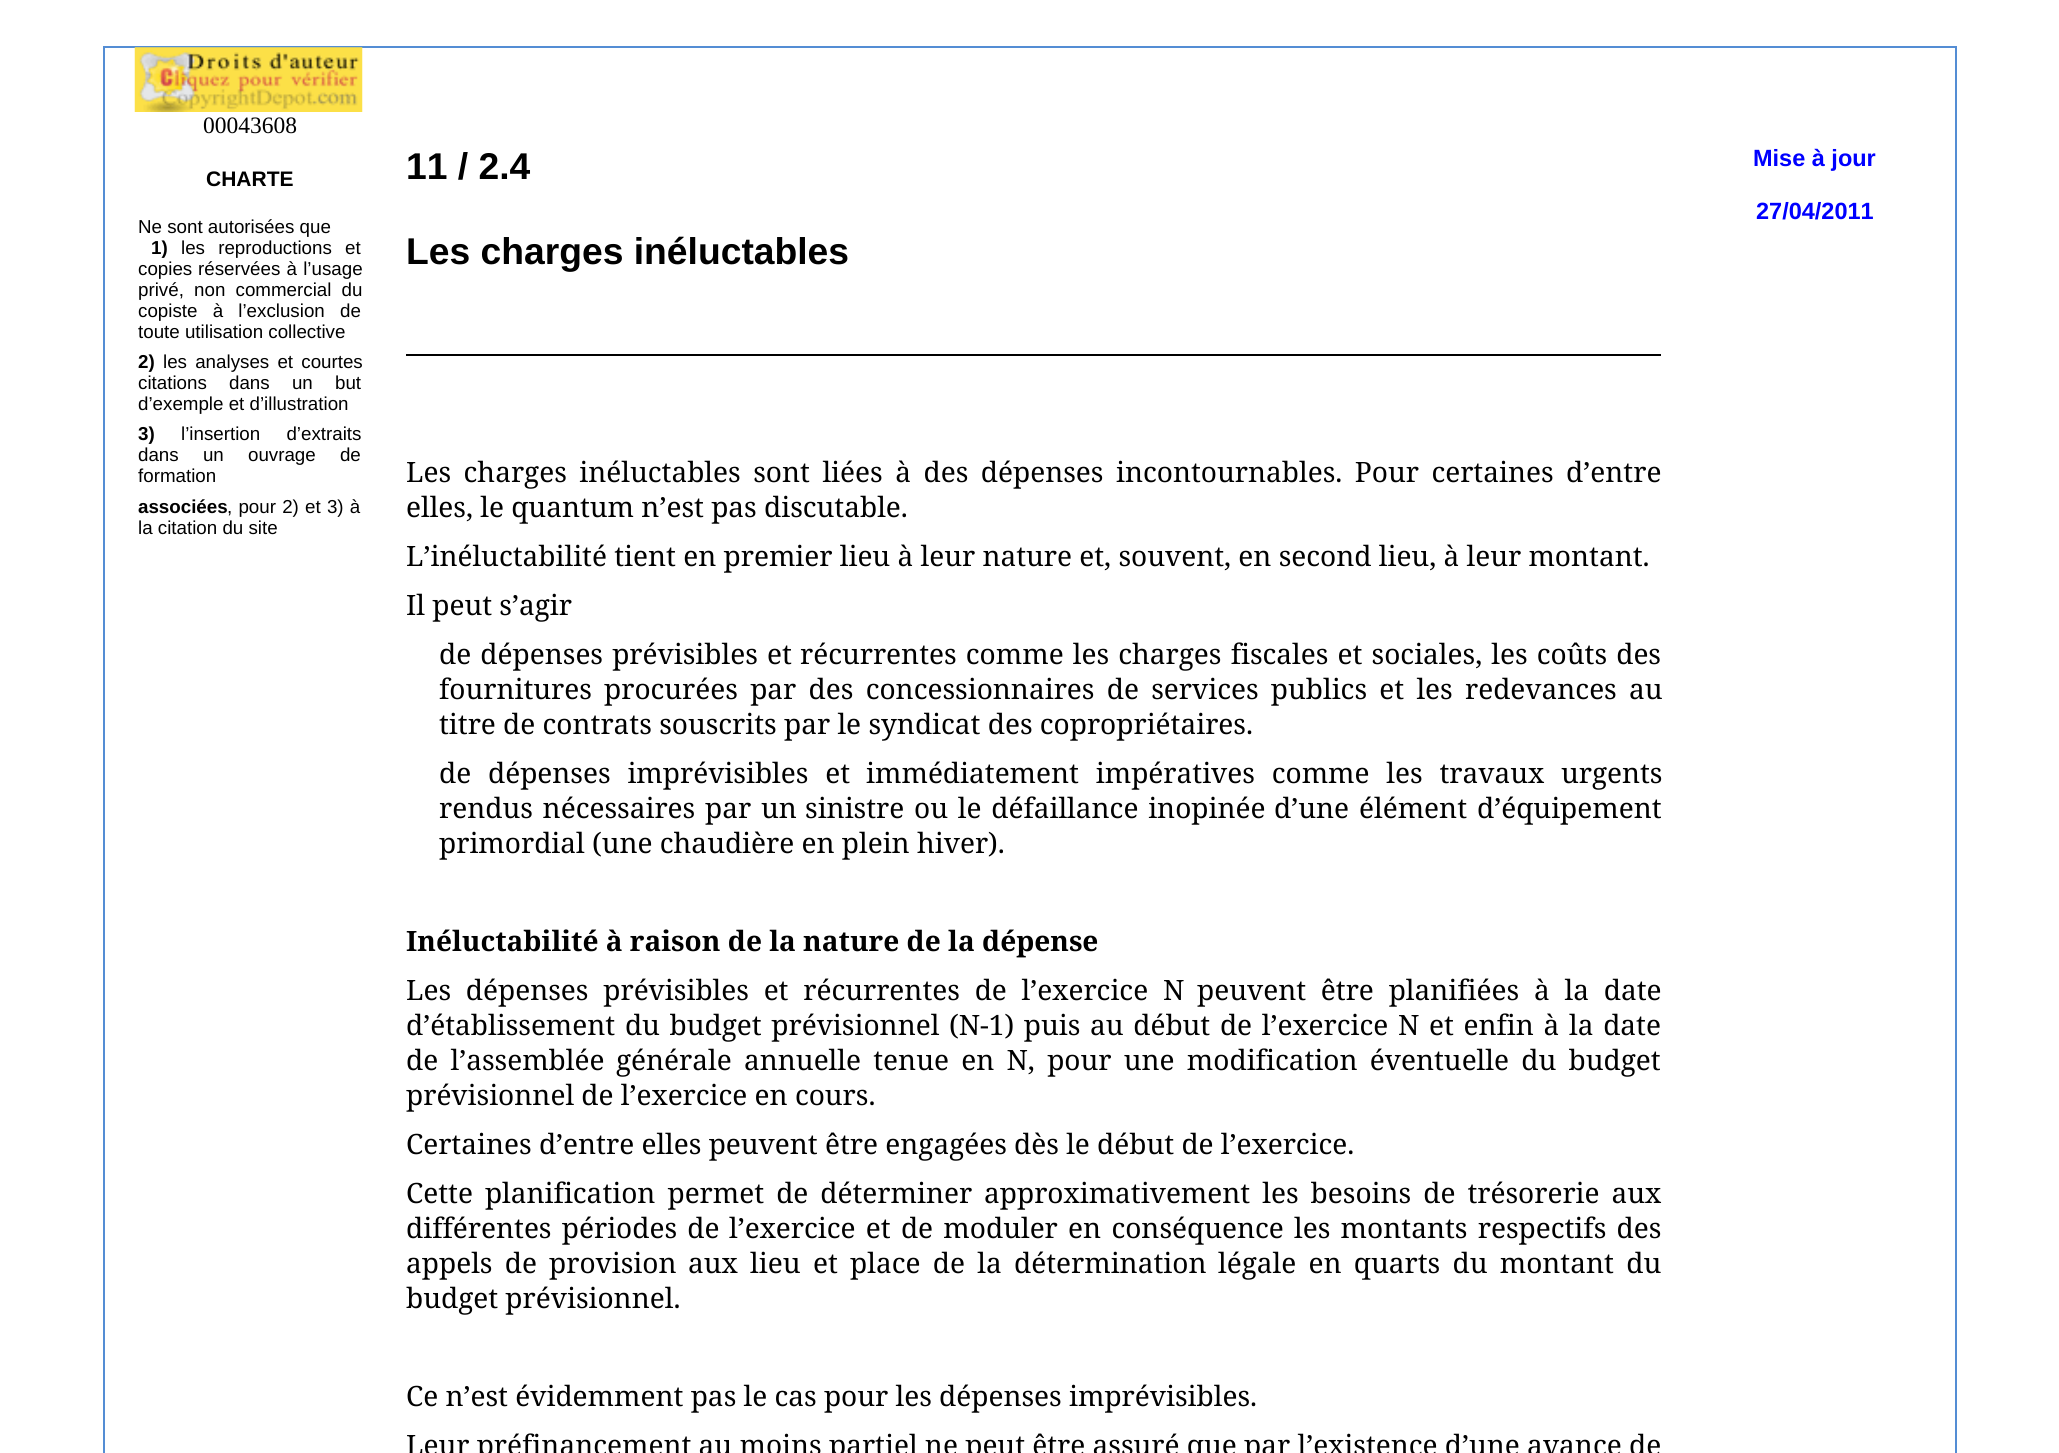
import math
import cairo

surface = cairo.ImageSurface(cairo.FORMAT_RGB24, 2059, 1453)
c = cairo.Context(surface)
options = cairo.FontOptions()
options.set_hint_metrics(cairo.HINT_METRICS_OFF)
options.set_hint_style(cairo.HINT_STYLE_NONE)
c.set_font_options(options)
c.set_miter_limit(4)
def C(code):
 c.set_source_rgb(*(v / 255 for v in bytes.fromhex(code[-6:])))
def F(family, size, italic, bold):
 c.select_font_face(family, cairo.FONT_SLANT_ITALIC if italic else cairo.FONT_SLANT_NORMAL, cairo.FONT_WEIGHT_BOLD if bold else cairo.FONT_WEIGHT_NORMAL)
 c.set_font_size(size)
def T(x, y, s):
 c.move_to(x, y)
 c.show_text(s)
def L(x, y, s, letter, word):
 c.move_to(x, y)
 for ch in s:
  c.show_text(ch)
  c.rel_move_to(letter + word * (ch == ' '), 0)
def R(x, y, w, h):
 c.rectangle(x, y, w, h)
 c.fill()
def I(path, x, y, w, h):
 c.save()
 c.set_source_surface(cairo.ImageSurface.create_from_png(path), x, y)
 c.rectangle(x, y, w, h)
 c.fill()
 c.restore()
C('ffffff')
c.paint()
C('548dd4')
R(103,46,1854,2)
R(103,46,2,1407)
I('1.png',134,47,229,65)
F('Liberation Serif',23.5,0,0)
C('000000')
T(203,133,'00043608')
F('Liberation Sans',21,0,1)
T(206,186,'CHARTE')
F('Liberation Sans',18.75,0,0)
T(138,233,'Ne sont autorisées que')
F('Liberation Sans',18.75,0,1)
T(151,254,'1)')
F('Liberation Sans',18.75,0,0)
L(181,254,'les reproductions et',0,8)
T(138,275,'copies')
L(198,275,'réservées à l’usage',0,1)
L(138,296,'privé, non commercial du',0,5)
L(138,317,'copiste à l’exclusion de',0,10)
T(138,338,'toute utilisation collective')
F('Liberation Sans',18.75,0,1)
T(138,368,'2)')
F('Liberation Sans',18.75,0,0)
L(163,368,'les analyses et courtes',0,3)
L(138,389,'citations dans un but',0,17)
T(138,410,'d’exemple et d’illustration')
F('Liberation Sans',18.75,0,1)
T(138,440,'3)')
F('Liberation Sans',18.75,0,0)
L(181,440,'l’insertion d’extraits',0,21)
L(138,461,'dans un ouvrage de',0,19)
T(138,482,'formation')
F('Liberation Sans',18.75,0,1)
T(138,513,'associées')
F('Liberation Sans',18.75,0,0)
L(227,513,', pour 2) et 3) à',0,1)
T(138,534,'la citation du site')
F('Liberation Sans',37.25,0,1)
T(406,179,'11 / 2.4')
R(406,354,1255,2)
T(406,264,'Les charges inéluctables')
F('Noto Serif',28,0,0)
L(406,482,'Les charges inéluctables sont liées à des dépenses',0,5.25)
L(1116,482,'incontournables. Pour certaines d’entre',0,5.25)
T(406,517,'elles, le quantum n’est pas discutable.')
T(406,566,'L’inéluctabilité tient en premier lieu à leur nature et, souvent, en second lieu, à leur montant.')
T(406,615,'Il peut s’agir')
L(439,664,'de dépenses prévisibles et',0,1.9)
L(800,664,'récurrentes comme les charges fiscales et sociales, les coûts des',0,1.9)
T(439,699,'fournitures')
L(604,699,'procurées par des concessionnaires de services publics et les redevances au',0,5)
T(439,734,'titre de contrats souscrits par le syndicat des copropriétaires.')
L(439,783,'de dépenses imprévisibles et',0,9.5)
L(866,783,'immédiatement impératives comme les travaux urgents',0,9.5)
L(439,818,'rendus nécessaires par un',0,2.5)
L(805,818,'sinistre ou le défaillance inopinée',0,2.5)
T(1274,818,'d’une')
T(1359,818,'élément')
T(1477,818,'d’équipement')
T(439,853,'primordial (une chaudière en plein hiver).')
F('Noto Serif',28,0,1)
T(406,951,'Inéluctabilité à raison de la nature de la dépense')
F('Noto Serif',28,0,0)
L(406,1000,'Les dépenses prévisibles et récurrentes de l’exercice N',0,7.5)
L(1197,1000,'peuvent être planifiées à la date',0,7.5)
L(406,1035,'d’établissement du budget prévisionnel',0,2.4)
L(949,1035,'(N-1) puis au début de l’exercice N et enfin à la date',0,2.4)
L(406,1070,'de l’assemblée',0,5)
L(616,1070,'générale annuelle tenue en N, pour une modification éventuelle du budget',0,5)
T(406,1105,'prévisionnel de l’exercice en cours.')
T(406,1154,'Certaines d’entre elles peuvent être engagées dès le début de l’exercice.')
L(406,1203,'Cette planification permet de déterminer',0,4.75)
L(984,1203,'approximativement les besoins de trésorerie aux',0,4.75)
L(406,1238,'différentes périodes de',0,3)
L(729,1238,'l’exercice et de moduler en conséquence les montants respectifs des',0,3)
L(406,1273,'appels de',0,5)
T(549,1273,'provision')
L(688,1273,'aux lieu',0,5)
L(813,1273,'et place de la détermination',0,5)
L(1218,1273,'légale en quarts du montant du',0,5)
T(406,1308,'budget prévisionnel.')
T(406,1406,'Ce n’est évidemment pas le cas pour les dépenses imprévisibles.')
T(406,1455,'Leur préfinancement au moins partiel ne peut être assuré que par l’existence d’une avance de')
C('548dd4')
R(1955,46,2,1407)
F('Liberation Sans',23.5,0,1)
C('0000ff')
T(1753,166,'Mise à jour')
T(1756,219,'27/04/2011')
surface.write_to_png('o.png')
